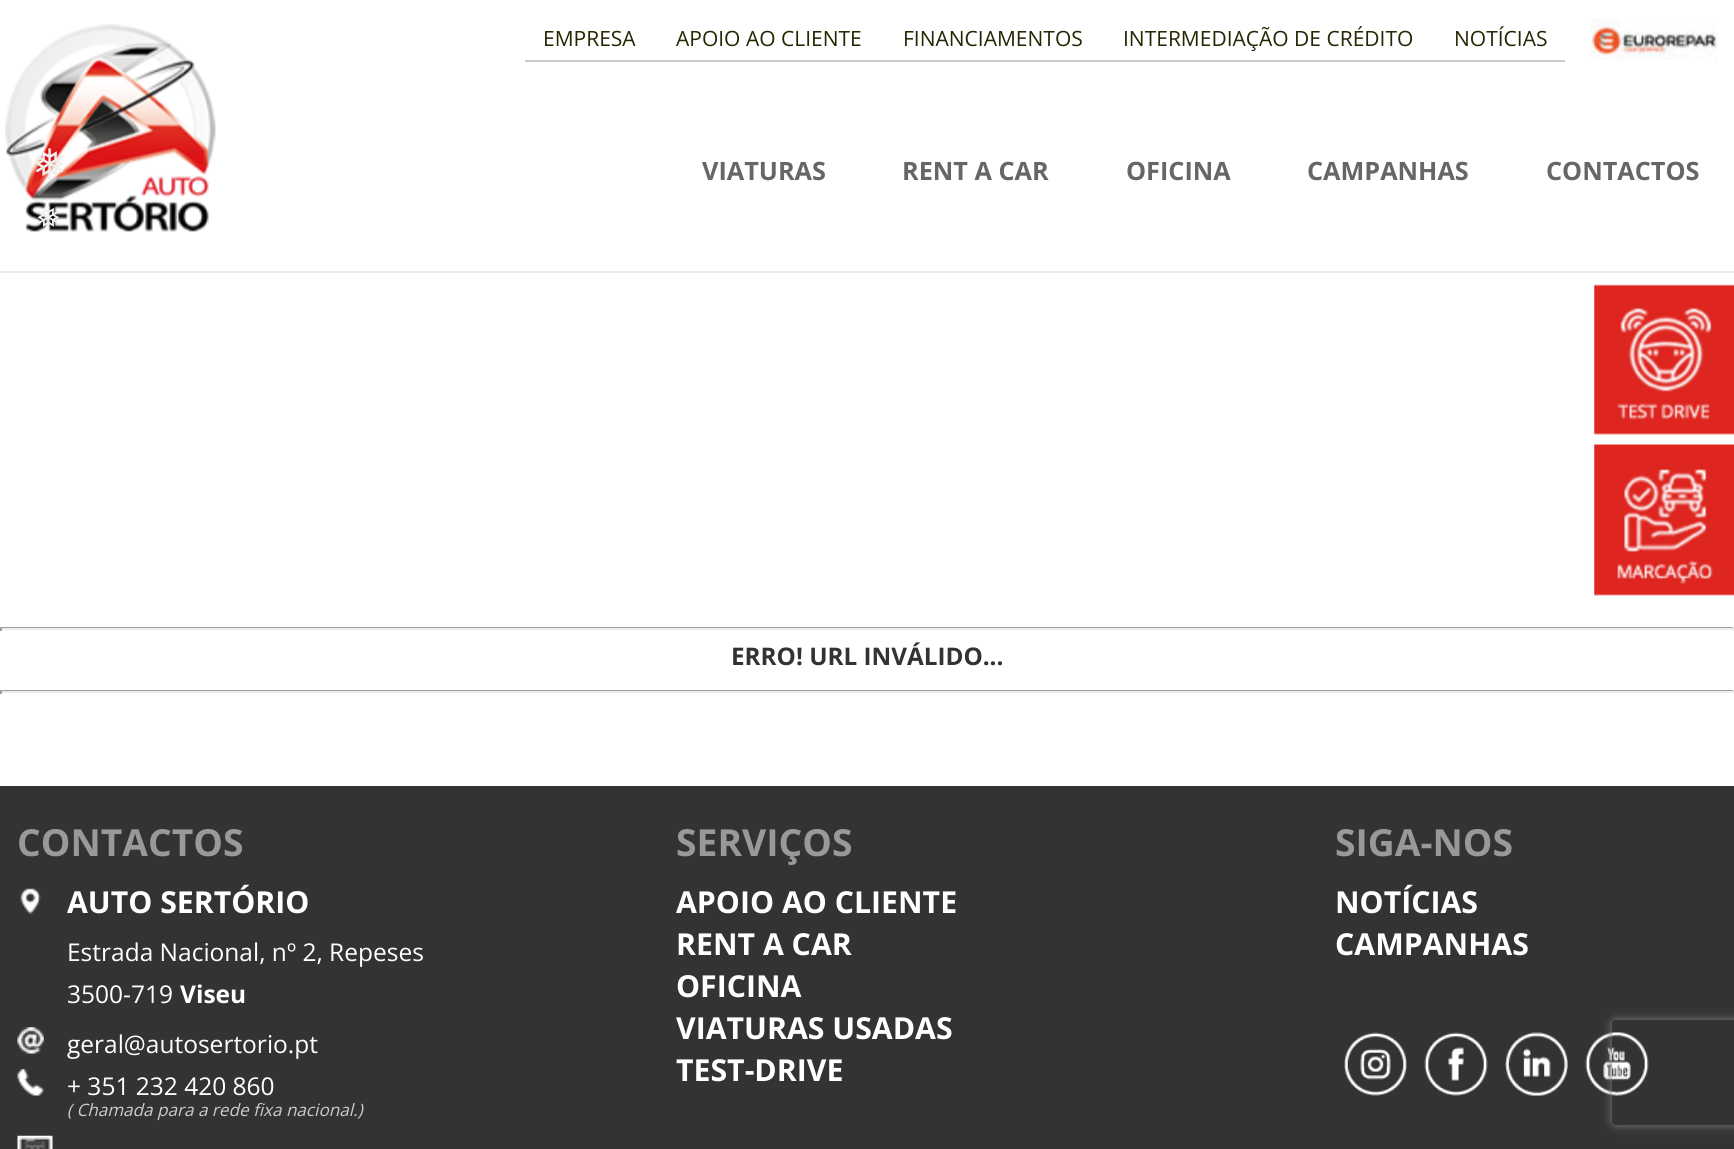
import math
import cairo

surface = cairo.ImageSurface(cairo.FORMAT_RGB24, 1734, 1149)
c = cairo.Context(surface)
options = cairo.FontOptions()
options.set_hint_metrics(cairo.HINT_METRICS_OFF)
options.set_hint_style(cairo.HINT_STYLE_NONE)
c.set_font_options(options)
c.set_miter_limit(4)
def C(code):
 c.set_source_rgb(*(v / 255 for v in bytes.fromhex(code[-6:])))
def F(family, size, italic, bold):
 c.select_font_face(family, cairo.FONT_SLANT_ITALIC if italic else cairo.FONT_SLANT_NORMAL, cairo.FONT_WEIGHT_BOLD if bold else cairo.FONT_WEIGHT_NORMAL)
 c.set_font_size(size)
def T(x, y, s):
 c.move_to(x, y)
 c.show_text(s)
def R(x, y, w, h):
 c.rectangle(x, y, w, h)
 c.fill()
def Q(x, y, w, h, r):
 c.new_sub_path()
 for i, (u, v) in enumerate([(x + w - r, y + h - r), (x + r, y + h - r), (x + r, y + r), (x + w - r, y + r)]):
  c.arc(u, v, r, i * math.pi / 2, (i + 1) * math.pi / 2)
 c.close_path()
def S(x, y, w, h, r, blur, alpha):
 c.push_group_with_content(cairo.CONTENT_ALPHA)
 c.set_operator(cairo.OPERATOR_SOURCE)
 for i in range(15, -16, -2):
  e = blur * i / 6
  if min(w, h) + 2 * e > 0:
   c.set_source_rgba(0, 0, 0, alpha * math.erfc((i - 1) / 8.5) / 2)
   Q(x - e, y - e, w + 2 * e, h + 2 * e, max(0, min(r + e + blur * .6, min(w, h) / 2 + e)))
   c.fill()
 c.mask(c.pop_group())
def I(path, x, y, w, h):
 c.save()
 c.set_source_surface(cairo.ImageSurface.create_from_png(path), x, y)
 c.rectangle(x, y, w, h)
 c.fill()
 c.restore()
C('ffffff')
c.paint()
I('1.png',5,24,211,208)
F('DejaVu Sans',42,0,0)
C('efefef')
T(32,179,'❅')
F('DejaVu Sans',32,0,0)
T(35,229,'❅')
C('ececec')
R(0,271,1734,2)
C('cccccc')
R(525,60,1040,2)
F('Open Sans',21,0,0)
C('262602')
T(543,46,'EMPRESA')
T(676,46,'APOIO AO CLIENTE')
T(903,46,'FINANCIAMENTOS')
T(1123,46,'INTERMEDIAÇÃO DE CRÉDITO')
T(1454,46,'NOTÍCIAS')
I('2.png',1590,18,128,42)
F('Open Sans',25.25,0,1)
C('666666')
T(702,180,'VIATURAS')
T(902,180,'RENT A CAR')
T(1126,180,'OFICINA')
T(1307,180,'CAMPANHAS')
T(1546,180,'CONTACTOS')
I('3.png',1594,284,140,151)
I('4.png',1594,444,140,152)
C('9f9f9f')
R(0,627,1734,1)
C('eeeeee')
R(1733,627,1,4)
C('ececec')
R(0,628,1734,2)
C('9f9f9f')
R(0,627,2,4)
F('Open Sans',24.25,0,1)
C('333333')
T(731,665,'ERRO! URL INVÁLIDO...')
C('9f9f9f')
R(0,690,1734,1)
C('eeeeee')
R(1733,690,1,4)
C('ececec')
R(0,691,1734,2)
C('9f9f9f')
R(0,690,2,4)
C('333333')
R(0,786,1734,363)
F('Open Sans',37.25,0,1)
C('999999')
T(17,856,'CONTACTOS')
I('5.png',20,888,21,26)
F('Open Sans',30.25,0,1)
C('ffffff')
T(67,913,'AUTO SERTÓRIO')
F('Open Sans',24.5,0,0)
T(67,961,'Estrada Nacional, nº 2, Repeses')
T(67,1003,'3500-719')
F('Open Sans',24.5,0,1)
T(180,1003,'Viseu')
I('6.png',17,1027,27,27)
F('Open Sans',24.5,0,0)
T(67,1053,'geral@autosertorio.pt')
I('7.png',17,1069,27,27)
T(67,1095,'+ 351 232 420 860')
F('Open Sans',17.1,1,0)
C('cccccc')
T(67,1116,'( Chamada para a rede fixa nacional.)')
I('8.png',17,1135,36,14)
F('Open Sans',37.25,0,1)
C('999999')
T(676,856,'SERVIÇOS')
F('Open Sans',30.25,0,1)
C('ffffff')
T(676,913,'APOIO AO CLIENTE')
T(676,955,'RENT A CAR')
T(676,997,'OFICINA')
T(676,1039,'VIATURAS USADAS')
T(676,1081,'TEST-DRIVE')
F('Open Sans',37.25,0,1)
C('999999')
T(1335,856,'SIGA-NOS')
F('Open Sans',30.25,0,1)
C('ffffff')
T(1335,913,'NOTÍCIAS')
T(1335,955,'CAMPANHAS')
I('9.png',1344,1032,63,64)
I('10.png',1424,1032,64,64)
I('11.png',1505,1032,63,64)
I('12.png',1585,1032,64,64)
c.save()
c.set_fill_rule(cairo.FILL_RULE_EVEN_ODD)
c.new_path()
c.move_to(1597,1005)
c.line_to(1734,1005)
c.line_to(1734,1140)
c.line_to(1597,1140)
c.close_path()
c.move_to(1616,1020)
c.line_to(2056,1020)
c.curve_to(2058,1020,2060,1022,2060,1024)
c.line_to(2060,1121)
c.curve_to(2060,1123,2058,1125,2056,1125)
c.line_to(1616,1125)
c.curve_to(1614,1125,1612,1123,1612,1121)
c.line_to(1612,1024)
c.curve_to(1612,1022,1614,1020,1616,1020)
c.close_path()
c.clip()
C('808080')
S(1612,1020,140,105,4,4.5,1)
c.restore()
surface.write_to_png('o.png')
